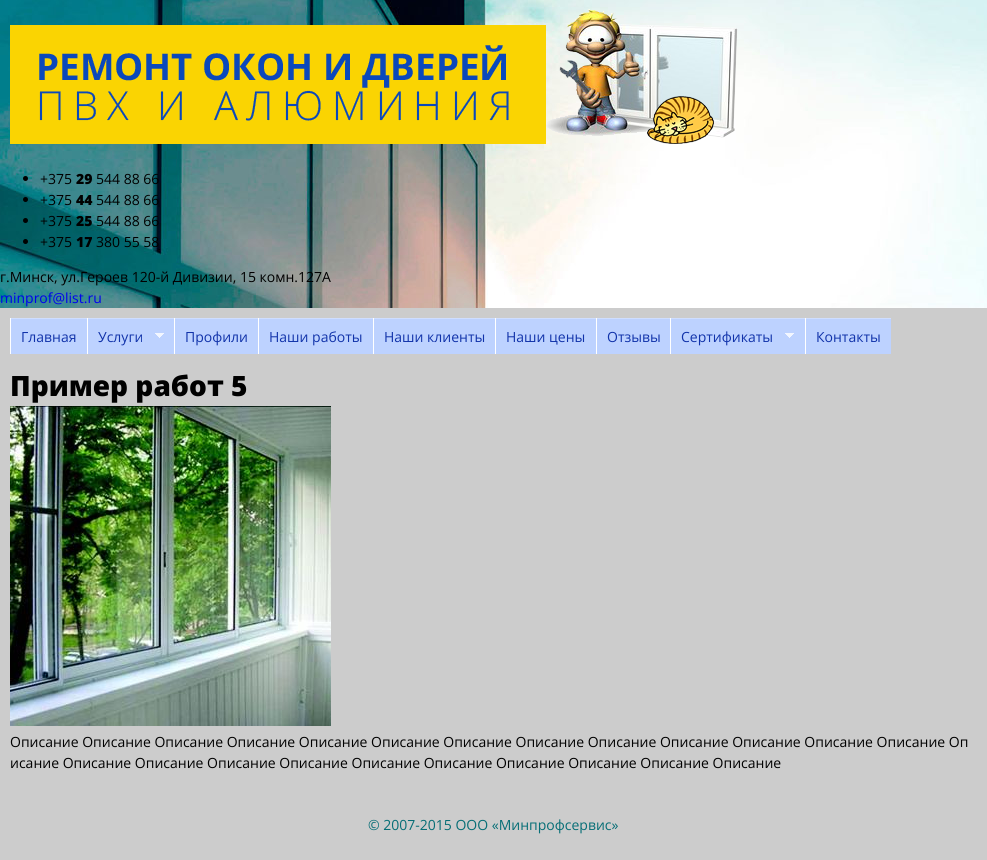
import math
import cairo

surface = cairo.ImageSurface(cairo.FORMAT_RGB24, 987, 860)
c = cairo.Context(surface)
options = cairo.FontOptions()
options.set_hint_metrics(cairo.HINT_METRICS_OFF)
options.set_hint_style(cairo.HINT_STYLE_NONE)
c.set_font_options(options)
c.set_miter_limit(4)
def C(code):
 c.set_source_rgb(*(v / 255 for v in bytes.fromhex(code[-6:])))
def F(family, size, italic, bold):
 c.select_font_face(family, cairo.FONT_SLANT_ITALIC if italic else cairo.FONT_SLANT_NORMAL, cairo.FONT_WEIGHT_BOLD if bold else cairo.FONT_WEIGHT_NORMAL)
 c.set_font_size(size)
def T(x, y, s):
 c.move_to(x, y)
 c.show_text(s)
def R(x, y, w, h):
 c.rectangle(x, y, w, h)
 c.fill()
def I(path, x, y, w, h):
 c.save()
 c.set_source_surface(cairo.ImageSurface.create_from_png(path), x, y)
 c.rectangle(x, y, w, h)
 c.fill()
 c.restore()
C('cccccc')
c.paint()
I('1.png',0,0,987,308)
I('2.png',10,25,536,119)
I('3.png',546,9,192,135)
C('000000')
c.arc(25.5,178.5,2.5,0,2 * math.pi)
c.fill()
F('Open Sans',14,0,0)
T(40,184,'+375')
F('Open Sans ExtraBold',14,0,0)
T(76,184,'29')
F('Open Sans',14,0,0)
T(96,184,'544 88 66')
c.new_path()
c.arc(25.5,199.5,2.5,0,2 * math.pi)
c.fill()
T(40,205,'+375')
F('Open Sans ExtraBold',14,0,0)
T(76,205,'44')
F('Open Sans',14,0,0)
T(96,205,'544 88 66')
c.new_path()
c.arc(25.5,220.5,2.5,0,2 * math.pi)
c.fill()
T(40,226,'+375')
F('Open Sans ExtraBold',14,0,0)
T(76,226,'25')
F('Open Sans',14,0,0)
T(96,226,'544 88 66')
c.new_path()
c.arc(25.5,241.5,2.5,0,2 * math.pi)
c.fill()
T(40,247,'+375')
F('Open Sans ExtraBold',14,0,0)
T(76,247,'17')
F('Open Sans',14,0,0)
T(96,247,'380 55 58')
T(0,282,'г.Минск, ул.Героев 120-й Дивизии, 15 комн.127А')
C('0000ee')
T(0,303,'minprof@list.ru')
C('bdd2ff')
R(11,319,76,35)
C('cfdeff')
R(10,318,881,1)
C('ffffff')
R(10,318,1,36)
C('1133aa')
T(21,342,'Главная')
C('bdd2ff')
R(88,319,86,35)
C('ffffff')
R(87,318,1,36)
C('1133aa')
T(98,342,'Услуги')
I('4.png',155,333,9,5)
C('bdd2ff')
R(175,319,83,35)
C('ffffff')
R(174,318,1,36)
C('1133aa')
T(185,342,'Профили')
C('bdd2ff')
R(259,319,114,35)
C('ffffff')
R(258,318,1,36)
C('1133aa')
T(269,342,'Наши работы')
C('bdd2ff')
R(374,319,121,35)
C('ffffff')
R(373,318,1,36)
C('1133aa')
T(384,342,'Наши клиенты')
C('bdd2ff')
R(496,319,100,35)
C('ffffff')
R(495,318,1,36)
C('1133aa')
T(506,342,'Наши цены')
C('bdd2ff')
R(597,319,73,35)
C('ffffff')
R(596,318,1,36)
C('1133aa')
T(607,342,'Отзывы')
C('bdd2ff')
R(671,319,134,35)
C('ffffff')
R(670,318,1,36)
C('1133aa')
T(681,342,'Сертификаты')
I('4.png',785,333,9,5)
C('bdd2ff')
R(806,319,85,35)
C('ffffff')
R(805,318,1,36)
C('1133aa')
T(816,342,'Контакты')
F('Open Sans ExtraBold',28,0,0)
C('000000')
T(10,396,'Пример работ 5')
I('5.png',10,406,321,320)
F('Open Sans',14,0,0)
T(10,747,'Описание Описание Описание Описание Описание Описание Описание Описание Описание Описание Описание Описание Описание Оп')
T(10,768,'исание Описание Описание Описание Описание Описание Описание Описание Описание Описание Описание')
C('066e76')
T(368,830,'© 2007-2015 ООО «Минпрофсервис»')
surface.write_to_png('o.png')
